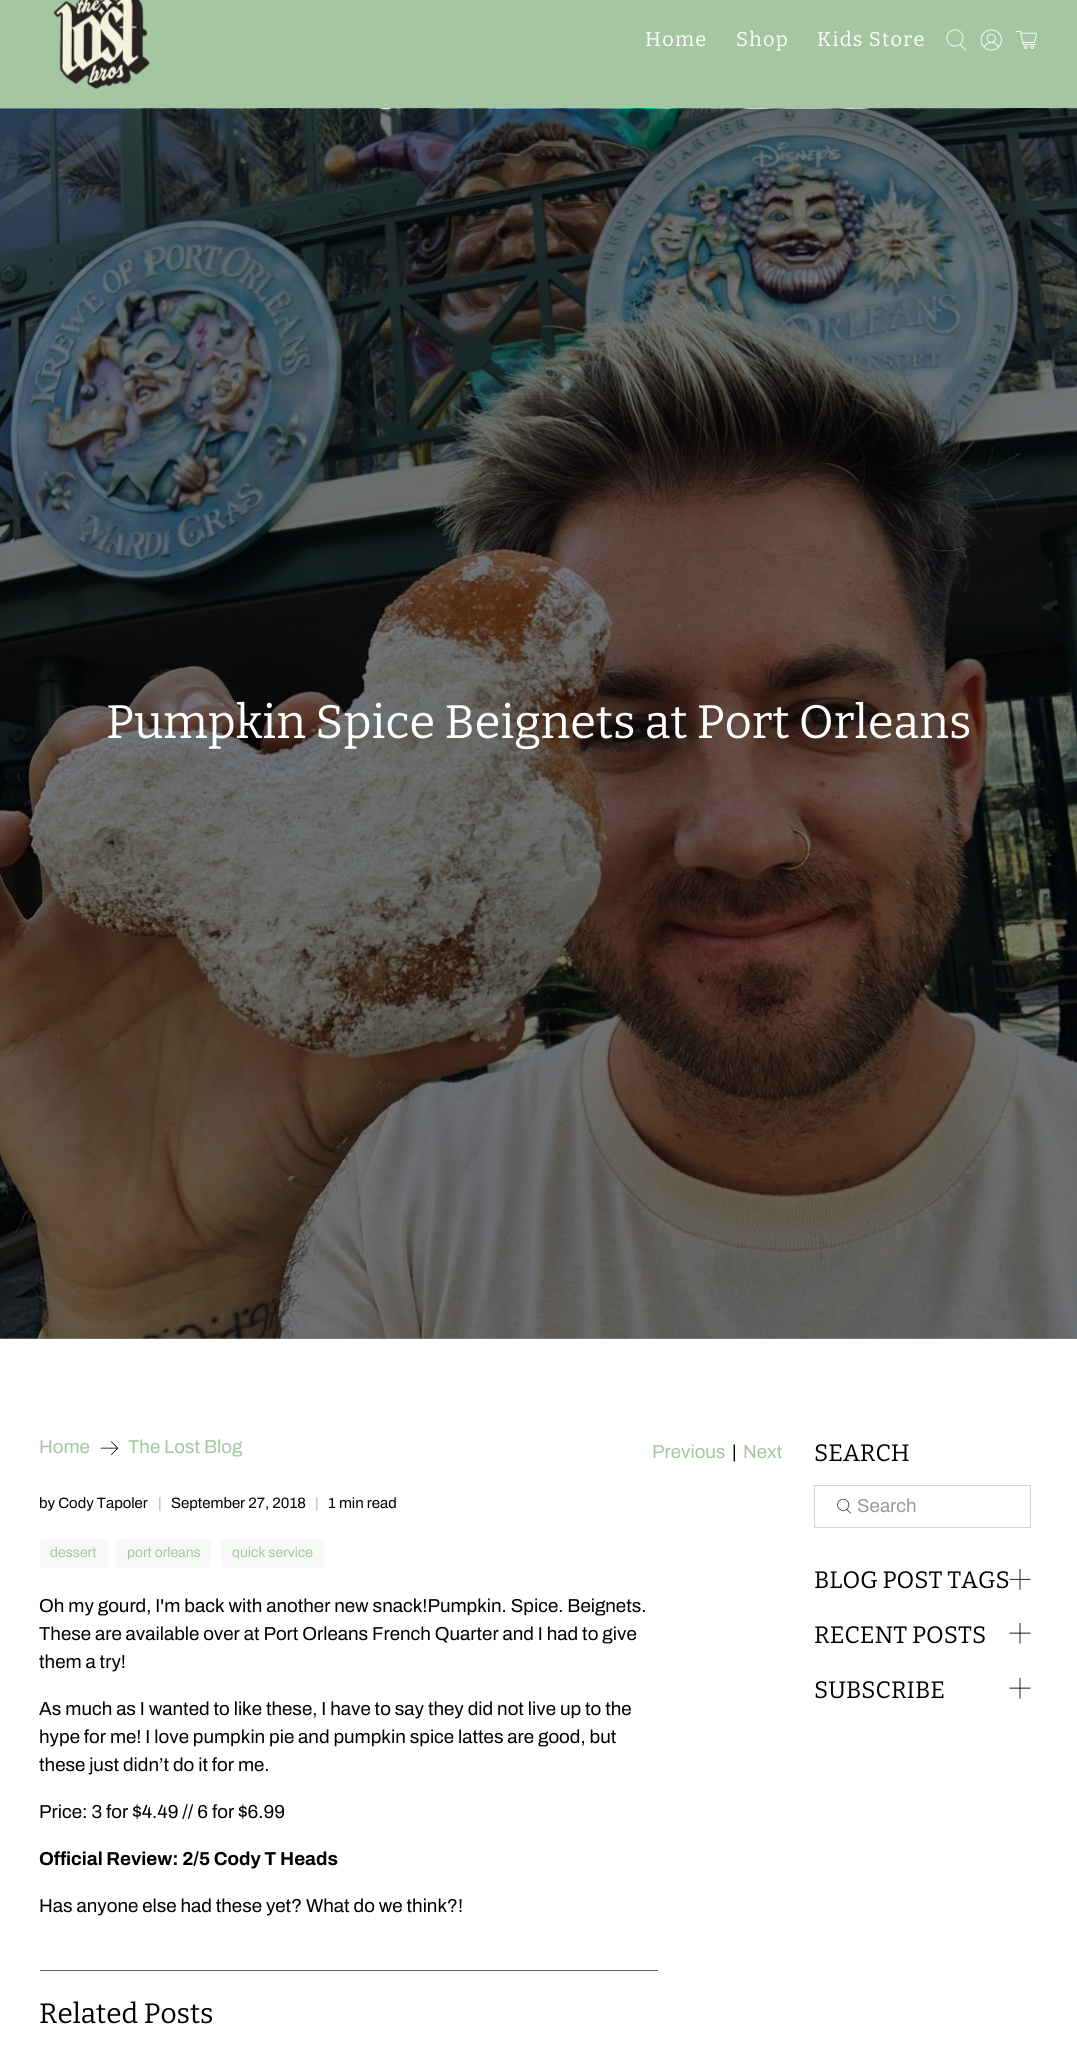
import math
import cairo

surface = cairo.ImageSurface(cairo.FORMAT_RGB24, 1077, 2049)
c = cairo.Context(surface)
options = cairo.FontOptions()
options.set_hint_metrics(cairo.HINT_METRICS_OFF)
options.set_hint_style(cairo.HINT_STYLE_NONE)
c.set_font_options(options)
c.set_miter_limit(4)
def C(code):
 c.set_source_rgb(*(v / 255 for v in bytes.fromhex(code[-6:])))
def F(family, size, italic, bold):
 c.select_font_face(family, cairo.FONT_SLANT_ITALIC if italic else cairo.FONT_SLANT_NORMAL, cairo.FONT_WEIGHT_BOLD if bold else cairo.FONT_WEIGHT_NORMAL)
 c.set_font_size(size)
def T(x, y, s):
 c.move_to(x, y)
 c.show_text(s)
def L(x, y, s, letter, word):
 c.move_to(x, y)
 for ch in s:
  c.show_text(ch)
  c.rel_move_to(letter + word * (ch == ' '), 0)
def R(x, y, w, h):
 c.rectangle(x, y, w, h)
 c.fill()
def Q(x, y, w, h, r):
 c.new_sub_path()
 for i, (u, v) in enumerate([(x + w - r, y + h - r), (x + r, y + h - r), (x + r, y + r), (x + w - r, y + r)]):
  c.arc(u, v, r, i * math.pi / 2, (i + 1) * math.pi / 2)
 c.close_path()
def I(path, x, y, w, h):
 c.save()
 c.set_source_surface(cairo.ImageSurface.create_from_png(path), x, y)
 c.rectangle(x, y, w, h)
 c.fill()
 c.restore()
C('ffffff')
c.paint()
C('808080')
R(0,1337,1077,2)
C('a4c7a2')
R(0,0,1077,108)
I('1.png',54,0,96,89)
F('Bitter',20,0,0)
C('ffffff')
L(645,46,'Home',1.25,0)
L(736,46,'Shop',1.25,0)
L(817,46,'Kids Store',1.25,0)
I('2.png',946,29,20,22)
I('3.png',980,29,22,22)
I('4.png',1015,31,22,18)
I('5.png',0,108,1077,1231)
F('Bitter',46.9,0,0)
T(106,738,'Pumpkin Spice Beignets at Port Orleans')
F('Archivo',18.75,0,0)
C('a4c7a2')
T(39,1453,'Home')
I('6.png',100,1441,19,14)
T(128,1453,'The Lost Blog')
T(652,1458,'Previous')
C('000000')
T(732,1458,'|')
C('a4c7a2')
T(743,1458,'Next')
F('Archivo',15,0,0)
C('000000')
T(39,1508,'by Cody Tapoler')
C('b3b3b3')
T(158,1508,'|')
C('000000')
T(171,1508,'September 27, 2018')
C('b3b3b3')
T(315,1508,'|')
C('000000')
T(328,1508,'1 min read')
C('f6f9f6')
Q(40,1539,68,29,5)
c.fill()
F('Archivo',14,0,0)
C('a4c7a2')
T(50,1557,'dessert')
C('f6f9f6')
Q(116,1539,95,29,5)
c.fill()
C('a4c7a2')
T(127,1557,'port orleans')
C('f6f9f6')
Q(221,1539,103,29,5)
c.fill()
C('a4c7a2')
T(232,1557,'quick service')
F('Archivo',18.75,0,0)
C('000000')
T(39,1612,'Oh my gourd, I\'m back with another new snack!Pumpkin. Spice. Beignets.')
T(39,1640,'These are available over at Port Orleans French Quarter and I had to give')
T(39,1668,'them a try!')
T(39,1715,'As much as I wanted to like these, I have to say they did not live up to the')
T(39,1743,'hype for me! I love pumpkin pie and pumpkin spice lattes are good, but')
T(39,1771,'these just didn’t do it for me.')
T(39,1818,'Price: 3 for $4.49 // 6 for $6.99')
F('Archivo',18.75,0,1)
T(39,1865,'Official Review: 2/5 Cody T Heads')
F('Archivo',18.75,0,0)
T(39,1912,'Has anyone else had these yet? What do we think?!')
C('616161')
R(40,1970,618,1)
F('Bitter',28,0,0)
C('000000')
T(39,2023,'Related Posts')
F('Bitter',23.75,0,0)
T(814,1461,'SEARCH')
c.rectangle(814.5,1485.5,216,42)
C('d3d3d3')
c.set_line_width(1)
c.stroke()
I('7.png',837,1499,14,15)
F('Archivo',18.75,0,0)
C('9b9b9b')
T(857,1512,'Search')
F('Bitter',23.75,0,0)
C('000000')
T(814,1588,'BLOG POST TAGS')
I('8.png',1009,1569,22,21)
T(814,1643,'RECENT POSTS')
I('9.png',1009,1623,22,21)
T(814,1698,'SUBSCRIBE')
I('9.png',1009,1678,22,21)
surface.write_to_png('o.png')
